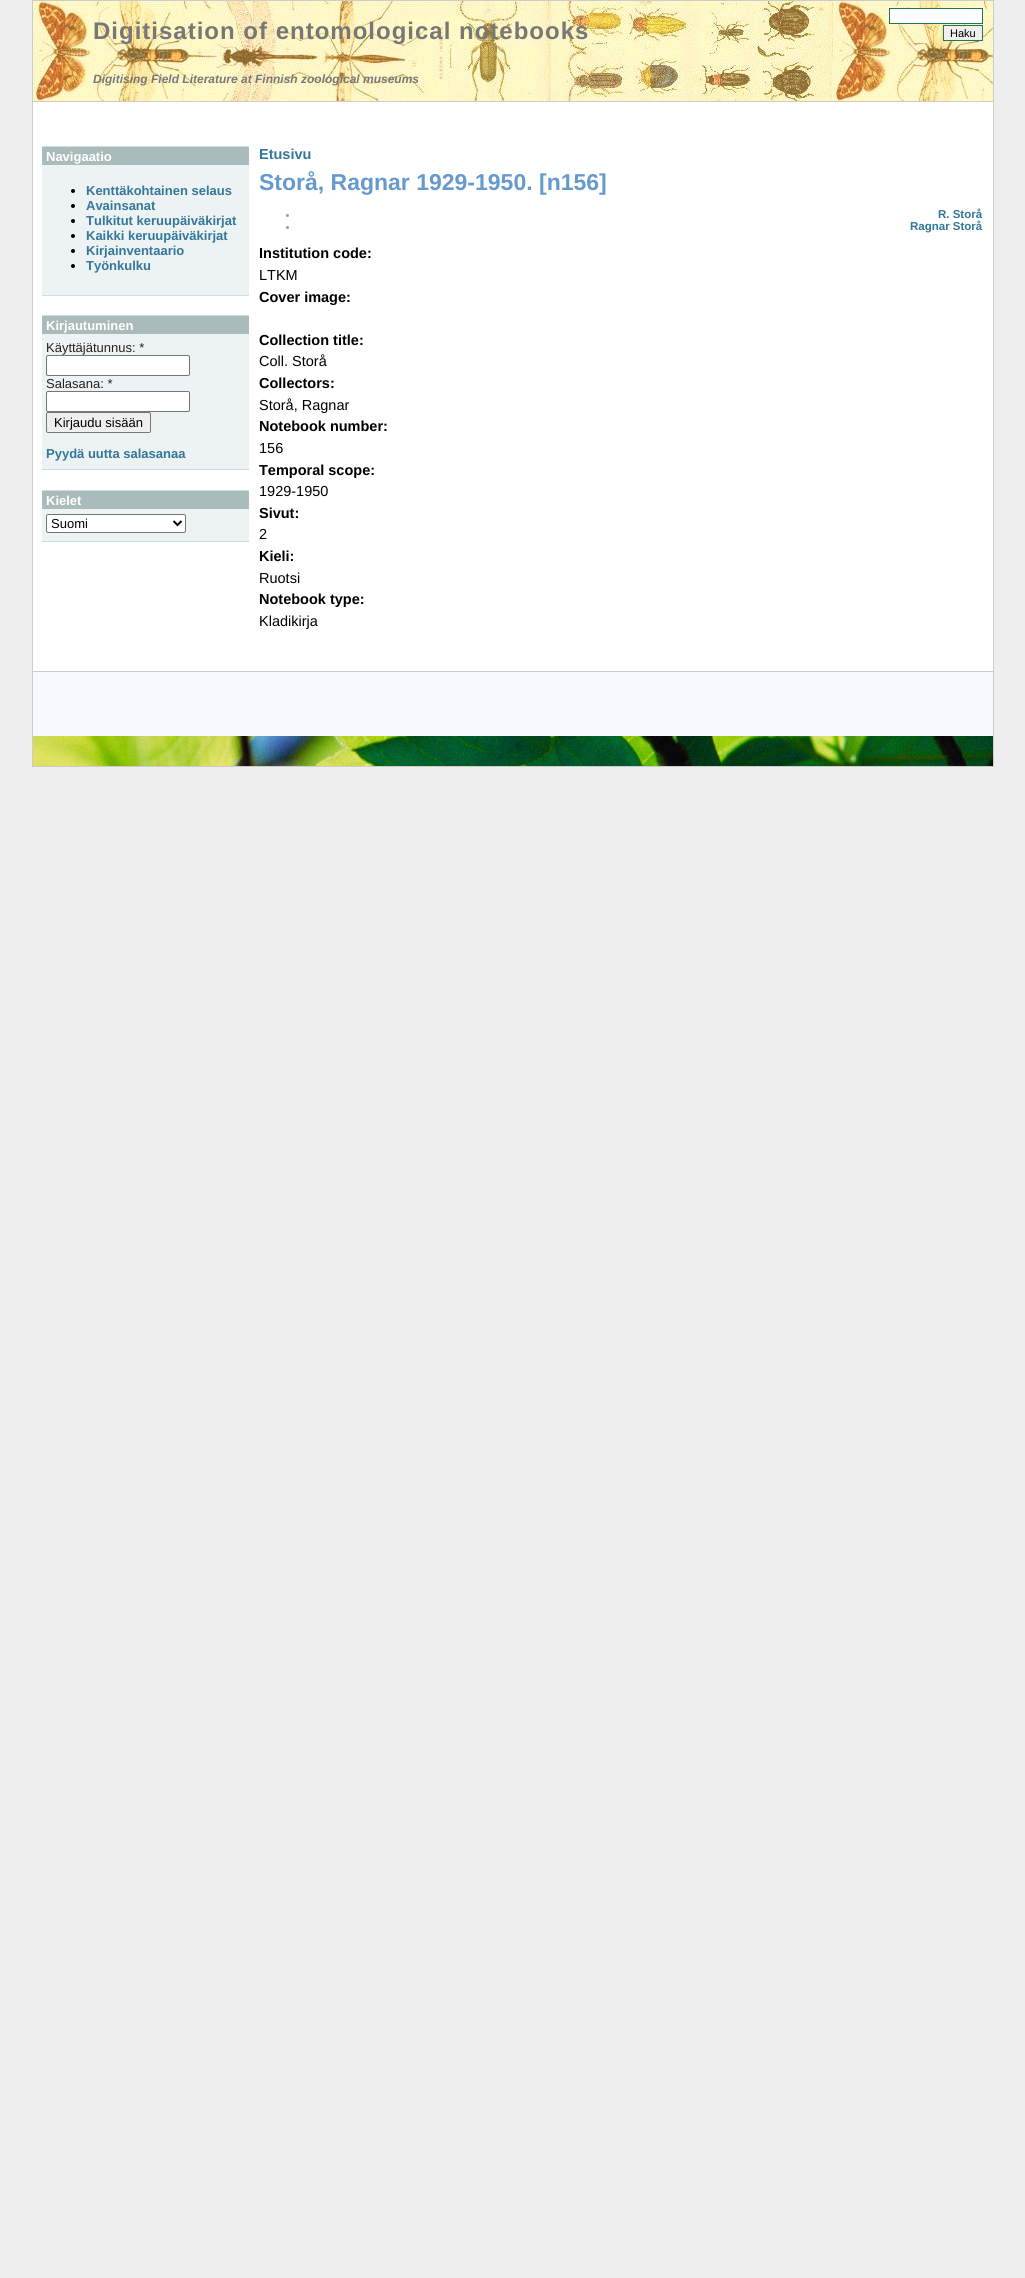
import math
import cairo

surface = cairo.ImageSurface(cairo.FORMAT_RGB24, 1025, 2278)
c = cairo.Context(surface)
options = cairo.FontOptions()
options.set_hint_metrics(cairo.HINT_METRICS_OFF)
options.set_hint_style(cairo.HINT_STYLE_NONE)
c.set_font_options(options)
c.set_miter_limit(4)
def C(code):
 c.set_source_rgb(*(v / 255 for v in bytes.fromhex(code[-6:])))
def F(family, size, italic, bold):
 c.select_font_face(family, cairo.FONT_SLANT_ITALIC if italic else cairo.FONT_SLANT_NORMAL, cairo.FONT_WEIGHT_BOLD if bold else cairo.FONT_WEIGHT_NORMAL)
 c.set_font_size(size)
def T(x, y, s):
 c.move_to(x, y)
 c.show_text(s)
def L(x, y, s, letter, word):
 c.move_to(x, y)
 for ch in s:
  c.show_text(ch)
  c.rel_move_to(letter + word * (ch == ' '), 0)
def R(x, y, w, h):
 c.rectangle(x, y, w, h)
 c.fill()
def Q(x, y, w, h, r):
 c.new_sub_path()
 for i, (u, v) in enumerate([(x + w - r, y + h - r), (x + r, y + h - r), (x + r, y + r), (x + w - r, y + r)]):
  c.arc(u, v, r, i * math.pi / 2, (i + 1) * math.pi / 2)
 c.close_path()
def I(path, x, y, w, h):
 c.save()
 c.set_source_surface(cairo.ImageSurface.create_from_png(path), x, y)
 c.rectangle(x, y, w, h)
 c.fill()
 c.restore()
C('eeeeee')
c.paint()
C('ffffff')
R(33,102,960,569)
c.rectangle(32.5,.5,961,766)
C('cccccc')
c.set_line_width(1)
c.stroke()
I('1.png',33,1,960,100)
R(33,101,960,1)
F('Liberation Sans',24,0,1)
C('777777')
L(93,39,'Digitisation of entomological notebooks',1,0)
F('Liberation Sans',12,1,1)
T(93,83,'Digitising Field Literature at Finnish zoological museums')
C('ffffff')
c.rectangle(889.5,8.5,93,15)
c.fill_preserve()
C('227755')
c.stroke()
C('efefef')
c.rectangle(943.5,25.5,39,15)
c.fill_preserve()
C('227755')
c.stroke()
F('Liberation Sans',11,0,0)
C('000000')
T(950,37,'Haku')
C('edf2f2')
R(42,165,207,130)
C('ccdddd')
R(42,146,207,1)
R(42,295,207,1)
C('aabbbb')
R(42,147,207,18)
F('Liberation Sans',13,0,1)
C('ffffff')
T(46,161,'Navigaatio')
C('000000')
c.new_path()
c.arc(73,191,2,0,2 * math.pi)
c.fill()
C('337799')
T(86,195,'Kenttäkohtainen selaus')
C('000000')
c.new_path()
c.arc(73,206,2,0,2 * math.pi)
c.fill()
C('337799')
T(86,210,'Avainsanat')
C('000000')
c.new_path()
c.arc(73,221,2,0,2 * math.pi)
c.fill()
C('337799')
T(86,225,'Tulkitut keruupäiväkirjat')
C('000000')
c.new_path()
c.arc(73,236,2,0,2 * math.pi)
c.fill()
C('337799')
T(86,240,'Kaikki keruupäiväkirjat')
C('000000')
c.new_path()
c.arc(73,251,2,0,2 * math.pi)
c.fill()
C('337799')
T(86,255,'Kirjainventaario')
C('000000')
c.new_path()
c.arc(73,266,2,0,2 * math.pi)
c.fill()
C('337799')
T(86,270,'Työnkulku')
C('edf2f2')
R(42,334,207,135)
C('ccdddd')
R(42,315,207,1)
R(42,469,207,1)
C('aabbbb')
R(42,316,207,18)
C('ffffff')
T(46,330,'Kirjautuminen')
F('Liberation Sans',13,0,0)
C('222222')
T(46,352,'Käyttäjätunnus: *')
C('ffffff')
Q(46.5,355.5,143,20,1.5)
c.fill_preserve()
C('767676')
c.stroke()
C('222222')
T(46,388,'Salasana: *')
C('ffffff')
Q(46.5,391.5,143,20,1.5)
c.fill_preserve()
C('767676')
c.stroke()
C('efefef')
Q(46.5,412.5,104,20,1.5)
c.fill_preserve()
C('767676')
c.stroke()
C('000000')
T(54,427,'Kirjaudu sisään')
F('Liberation Sans',13,0,1)
C('337799')
T(46,458,'Pyydä uutta salasanaa')
C('edf2f2')
R(42,509,207,32)
C('ccdddd')
R(42,490,207,1)
R(42,541,207,1)
C('aabbbb')
R(42,491,207,18)
C('ffffff')
T(46,505,'Kielet')
Q(46.5,514.5,139,18,1.5)
c.fill_preserve()
C('767676')
c.stroke()
c.new_path()
c.move_to(173.5,521)
c.line_to(177.5,525)
c.line_to(181.5,521)
C('000000')
c.set_line_width(2)
c.stroke()
F('Liberation Sans',13,0,0)
T(51,528,'Suomi')
F('Liberation Sans',14.5,0,1)
C('337799')
T(259,159,'Etusivu')
F('Liberation Sans',23,0,1)
C('6699cc')
T(259,190,'Storå, Ragnar 1929-1950. [n156]')
C('999999')
c.new_path()
c.arc(287.5,215.5,1.5,0,2 * math.pi)
c.fill()
F('Liberation Sans',11.5,0,1)
C('337799')
T(938,218,'R. Storå')
C('999999')
c.new_path()
c.arc(287.5,227.5,1.5,0,2 * math.pi)
c.fill()
C('337799')
T(910,230,'Ragnar Storå')
F('Liberation Sans',14.5,0,1)
C('000000')
T(259,258,'Institution code:')
F('Liberation Sans',14.5,0,0)
T(259,280,'LTKM')
F('Liberation Sans',14.5,0,1)
T(259,302,'Cover image:')
T(259,345,'Collection title:')
F('Liberation Sans',14.5,0,0)
T(259,366,'Coll. Storå')
F('Liberation Sans',14.5,0,1)
T(259,388,'Collectors:')
F('Liberation Sans',14.5,0,0)
T(259,410,'Storå, Ragnar')
F('Liberation Sans',14.5,0,1)
T(259,431,'Notebook number:')
F('Liberation Sans',14.5,0,0)
T(259,453,'156')
F('Liberation Sans',14.5,0,1)
T(259,475,'Temporal scope:')
F('Liberation Sans',14.5,0,0)
T(259,496,'1929-1950')
F('Liberation Sans',14.5,0,1)
T(259,518,'Sivut:')
F('Liberation Sans',14.5,0,0)
T(259,539,'2')
F('Liberation Sans',14.5,0,1)
T(259,561,'Kieli:')
F('Liberation Sans',14.5,0,0)
T(259,583,'Ruotsi')
F('Liberation Sans',14.5,0,1)
T(259,604,'Notebook type:')
F('Liberation Sans',14.5,0,0)
T(259,626,'Kladikirja')
C('f8f8ff')
R(33,672,960,64)
I('2.png',33,736,960,30)
C('cccccc')
R(33,671,960,1)
surface.write_to_png('o.png')
